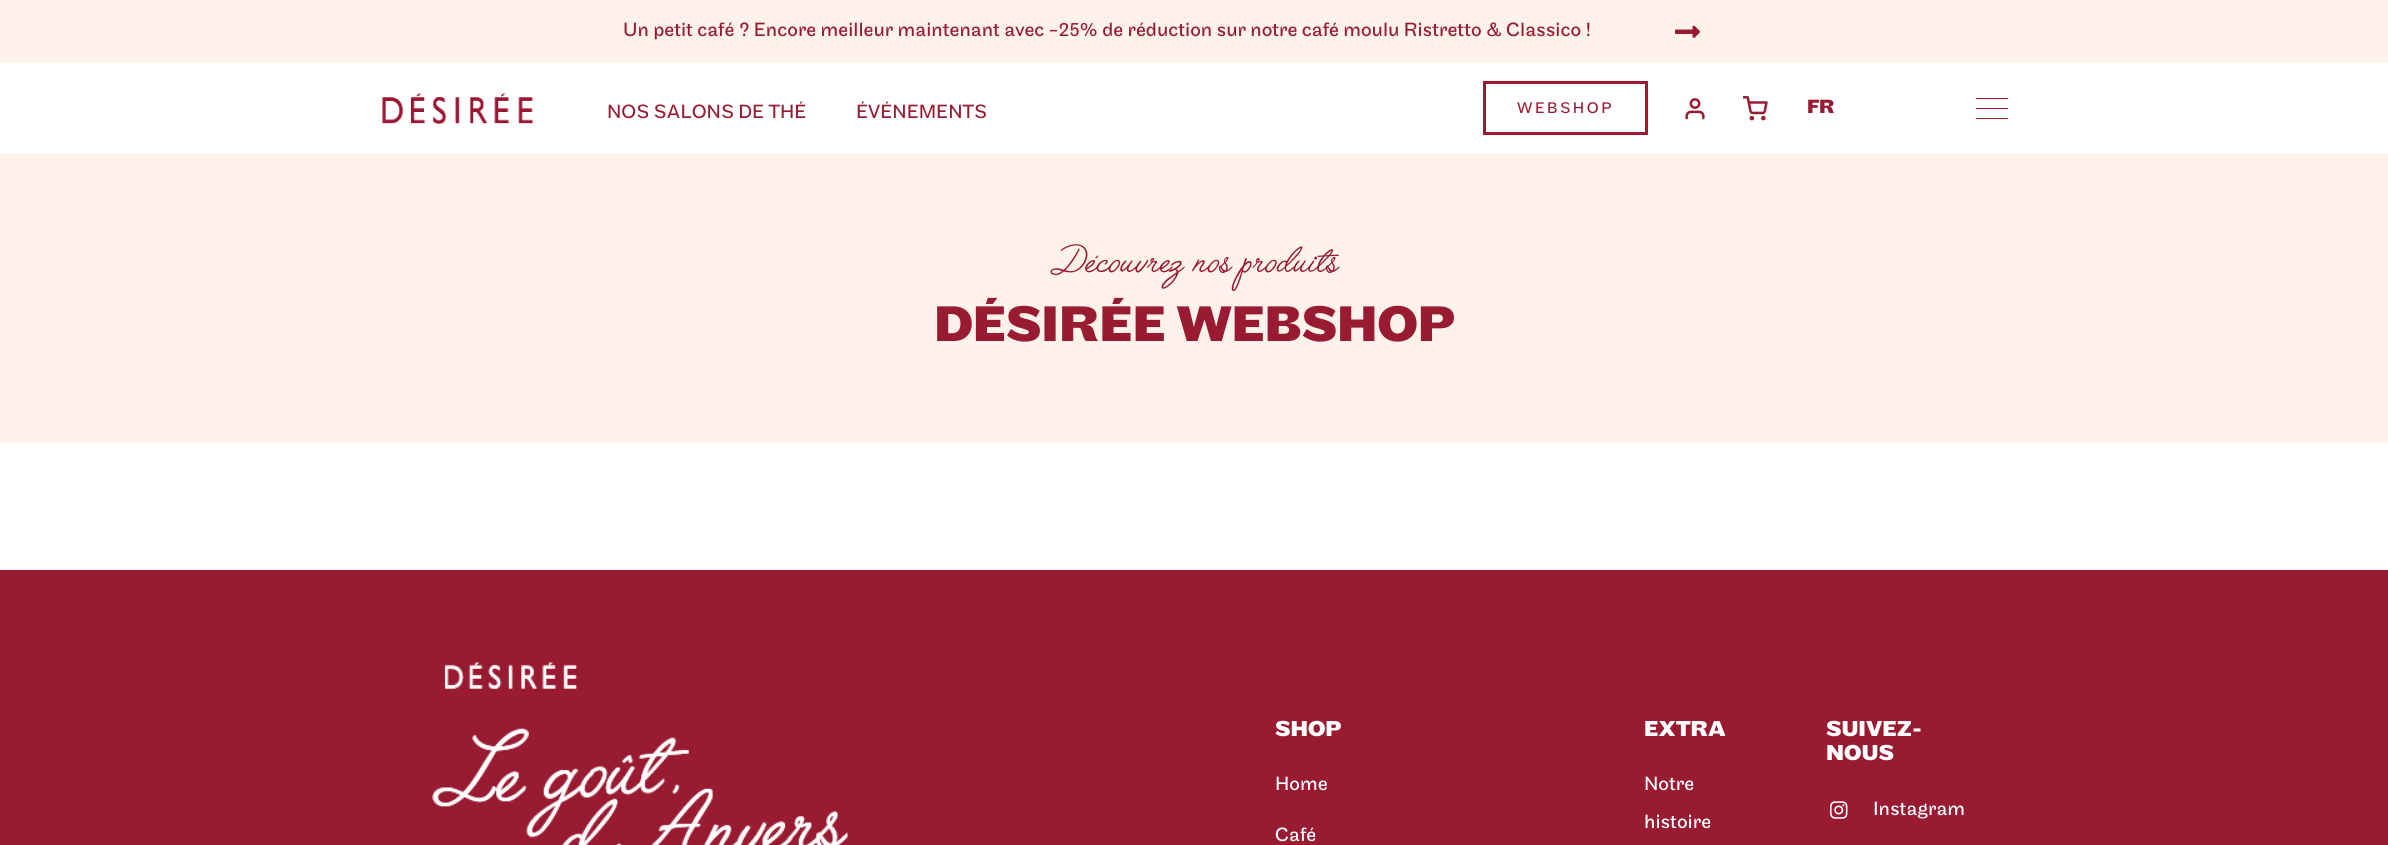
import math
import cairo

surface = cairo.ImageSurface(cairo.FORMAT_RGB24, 2388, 845)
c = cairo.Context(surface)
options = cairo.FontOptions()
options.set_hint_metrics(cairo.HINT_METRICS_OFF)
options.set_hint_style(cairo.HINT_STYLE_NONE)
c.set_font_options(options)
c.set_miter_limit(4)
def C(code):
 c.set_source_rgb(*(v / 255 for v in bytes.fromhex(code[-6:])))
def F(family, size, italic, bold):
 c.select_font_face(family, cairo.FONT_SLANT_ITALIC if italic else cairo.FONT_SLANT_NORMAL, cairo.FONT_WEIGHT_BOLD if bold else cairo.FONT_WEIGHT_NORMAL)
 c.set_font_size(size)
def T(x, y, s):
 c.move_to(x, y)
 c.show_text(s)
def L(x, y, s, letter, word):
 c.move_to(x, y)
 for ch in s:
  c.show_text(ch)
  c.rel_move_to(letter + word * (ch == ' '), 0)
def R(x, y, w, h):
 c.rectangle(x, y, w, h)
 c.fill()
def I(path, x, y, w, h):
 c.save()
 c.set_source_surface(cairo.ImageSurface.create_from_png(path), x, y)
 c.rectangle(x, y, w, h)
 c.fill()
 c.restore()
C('ffffff')
c.paint()
C('fef2eb')
R(0,0,2388,63)
F('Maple',20,0,0)
C('981b32')
T(623,36,'Un petit café ? Encore meilleur maintenant avec -25% de réduction sur notre café moulu Ristretto & Classico !')
I('1.png',1675,25,25,13)
I('2.png',382,93,151,31)
T(607,118,'NOS SALONS DE THÉ')
T(856,118,'ÉVÉNEMENTS')
c.rectangle(1484.5,82.5,162,51)
c.set_line_width(3)
c.stroke()
F('Maple',16,0,0)
L(1517,113,'WEBSHOP',2.5,0)
I('3.png',1685,98,20,22)
I('4.png',1743,96,25,25)
F('Maple',20,0,1)
T(1807,113,'FR')
R(1976,98,32,1)
R(1976,108,32,1)
R(1976,118,32,1)
C('fef2eb')
R(0,154,2388,289)
F('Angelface',50,0,0)
C('981b32')
T(1050,272,'Découvrez nos produits')
F('Maple',52,0,1)
T(934,341,'DÉSIRÉE WEBSHOP')
R(0,570,2388,275)
I('5.png',444,662,133,27)
I('6.png',432,728,416,117)
F('Maple',22.5,0,1)
C('ffffff')
T(1275,736,'SHOP')
F('Maple',20,0,0)
T(1275,790,'Home')
T(1275,841,'Café')
F('Maple',22.5,0,1)
T(1644,736,'EXTRA')
F('Maple',20,0,0)
T(1644,790,'Notre')
T(1644,828,'histoire')
F('Maple',22.5,0,1)
T(1826,736,'SUIVEZ-')
T(1826,760,'NOUS')
I('7.png',1830,801,18,18)
F('Maple',20,0,0)
T(1873,815,'Instagram')
surface.write_to_png('o.png')
